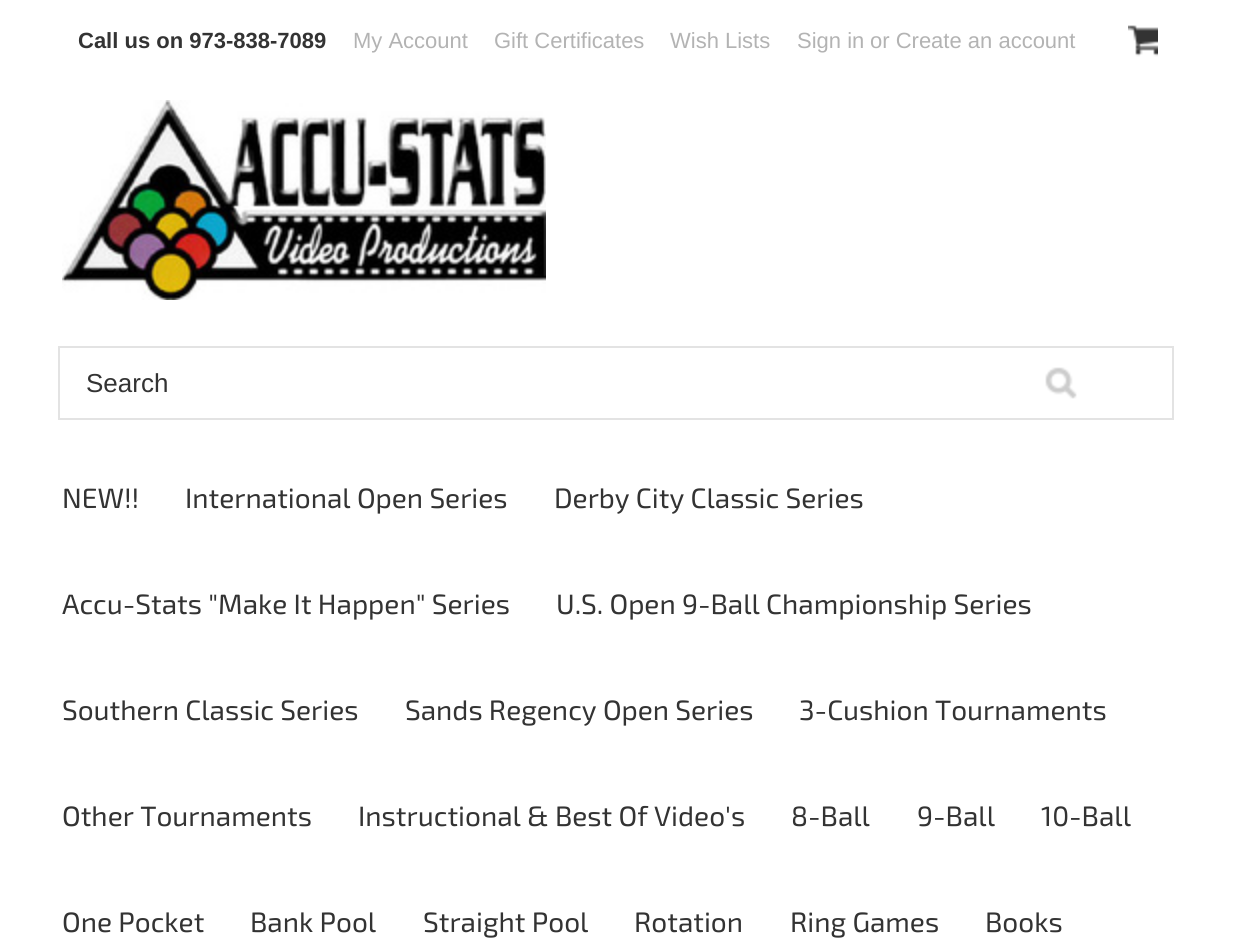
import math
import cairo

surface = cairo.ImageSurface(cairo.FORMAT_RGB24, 1235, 939)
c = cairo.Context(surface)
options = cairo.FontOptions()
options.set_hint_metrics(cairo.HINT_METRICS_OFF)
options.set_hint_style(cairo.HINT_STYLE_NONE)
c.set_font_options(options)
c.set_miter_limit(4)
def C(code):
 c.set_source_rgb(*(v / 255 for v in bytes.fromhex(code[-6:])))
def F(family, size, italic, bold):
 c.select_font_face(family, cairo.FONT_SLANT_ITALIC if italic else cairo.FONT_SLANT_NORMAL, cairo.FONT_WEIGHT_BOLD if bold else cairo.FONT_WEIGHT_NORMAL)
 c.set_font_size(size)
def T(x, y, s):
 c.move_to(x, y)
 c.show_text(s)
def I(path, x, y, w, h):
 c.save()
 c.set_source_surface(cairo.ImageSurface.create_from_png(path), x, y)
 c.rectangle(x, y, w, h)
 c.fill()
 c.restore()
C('ffffff')
c.paint()
F('Liberation Sans',22,0,1)
C('333333')
T(78,48,'Call us on 973-838-7089')
F('Liberation Sans',22,0,0)
C('b3b3b3')
T(353,48,'My Account')
T(494,48,'Gift Certificates')
T(670,48,'Wish Lists')
T(797,48,'Sign in')
T(870,48,'or Create an account')
I('1.png',1128,25,30,32)
I('2.png',62,100,484,200)
c.rectangle(59,347,1114,72)
C('e3e3e3')
c.stroke()
F('Liberation Sans',26,0,0)
C('333333')
T(86,392,'Search')
I('3.png',1045,367,32,32)
F('Exo 2',28,0,0)
T(62,508,'NEW!!')
T(185,508,'International Open Series')
T(554,508,'Derby City Classic Series')
T(62,614,'Accu-Stats "Make It Happen" Series')
T(556,614,'U.S. Open 9-Ball Championship Series')
T(62,720,'Southern Classic Series')
T(405,720,'Sands Regency Open Series')
T(799,720,'3-Cushion Tournaments')
T(62,826,'Other Tournaments')
T(358,826,'Instructional & Best Of Video\'s')
T(791,826,'8-Ball')
T(917,826,'9-Ball')
T(1041,826,'10-Ball')
T(62,932,'One Pocket')
T(250,932,'Bank Pool')
T(423,932,'Straight Pool')
T(634,932,'Rotation')
T(790,932,'Ring Games')
T(985,932,'Books')
surface.write_to_png('o.png')
